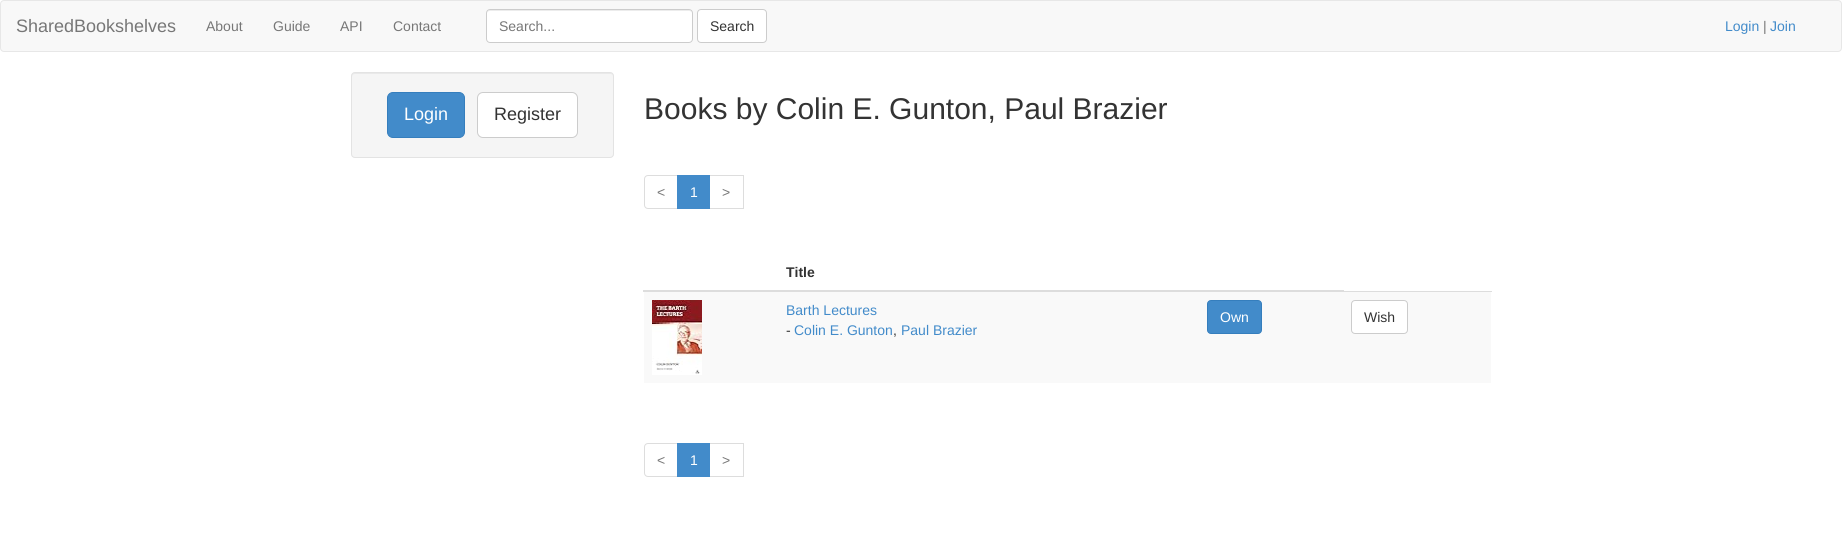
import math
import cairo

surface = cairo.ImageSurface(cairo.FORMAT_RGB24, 1842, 539)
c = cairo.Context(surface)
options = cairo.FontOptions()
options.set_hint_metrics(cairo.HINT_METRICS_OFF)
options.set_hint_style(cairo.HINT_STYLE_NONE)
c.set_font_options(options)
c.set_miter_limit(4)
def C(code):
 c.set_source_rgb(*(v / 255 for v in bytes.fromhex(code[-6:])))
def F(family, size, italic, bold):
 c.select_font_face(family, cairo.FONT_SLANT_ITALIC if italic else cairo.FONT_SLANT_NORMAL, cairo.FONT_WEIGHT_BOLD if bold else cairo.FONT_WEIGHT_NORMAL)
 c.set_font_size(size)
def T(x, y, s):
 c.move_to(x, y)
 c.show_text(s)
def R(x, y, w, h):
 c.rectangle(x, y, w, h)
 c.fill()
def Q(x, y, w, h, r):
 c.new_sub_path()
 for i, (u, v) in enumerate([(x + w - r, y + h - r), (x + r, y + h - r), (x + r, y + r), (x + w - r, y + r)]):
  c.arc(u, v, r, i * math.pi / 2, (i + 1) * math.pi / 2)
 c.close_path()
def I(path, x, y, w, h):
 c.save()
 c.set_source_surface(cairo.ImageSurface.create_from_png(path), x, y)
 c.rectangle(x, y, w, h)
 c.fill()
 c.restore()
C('ffffff')
c.paint()
C('f8f8f8')
Q(.5,.5,1841,51,3.5)
c.fill_preserve()
C('e7e7e7')
c.set_line_width(1)
c.stroke()
F('Liberation Sans',18,0,0)
C('777777')
T(16,32,'SharedBookshelves')
F('Liberation Sans',14,0,0)
T(206,31,'About')
T(273,31,'Guide')
T(340,31,'API')
T(393,31,'Contact')
C('ffffff')
Q(486,9,207,34,4)
c.fill()
C('ececec')
c.new_path()
c.move_to(490,11)
c.line_to(689,11)
c.curve_to(691,11,692,12,692,14)
c.curve_to(692,12,691,10,689,10)
c.line_to(490,10)
c.curve_to(488,10,487,12,487,14)
c.curve_to(487,12,488,11,490,11)
c.close_path()
c.fill()
Q(486.5,9.5,206,33,3.5)
C('cccccc')
c.stroke()
C('777777')
T(499,31,'Search...')
C('ffffff')
Q(697.5,9.5,69,33,3.5)
c.fill_preserve()
C('cccccc')
c.stroke()
C('333333')
T(710,31,'Search')
C('428bca')
T(1725,31,'Login')
C('777777')
T(1763,31,'|')
C('428bca')
T(1770,31,'Join')
C('f5f5f5')
Q(351,72,263,86,4)
c.fill()
C('e9e9e9')
c.new_path()
c.move_to(355,74)
c.line_to(611,74)
c.line_to(613,75)
c.line_to(613,77)
c.line_to(613,76)
c.curve_to(613,74,612,73,610,73)
c.line_to(355,73)
c.curve_to(353,73,352,74,352,76)
c.line_to(352,77)
c.curve_to(352,75,353,74,355,74)
c.close_path()
c.fill()
Q(351.5,72.5,262,85,3.5)
C('e3e3e3')
c.stroke()
C('428bca')
Q(387.5,92.5,77,45,5.5)
c.fill_preserve()
C('357ebd')
c.stroke()
F('Liberation Sans',18,0,0)
C('ffffff')
T(404,120,'Login')
Q(477.5,92.5,100,45,5.5)
c.fill_preserve()
C('cccccc')
c.stroke()
C('333333')
T(494,120,'Register')
F('Liberation Sans',30,0,0)
T(644,119,'Books by Colin E. Gunton, Paul Brazier')
c.new_path()
c.move_to(648,175.5)
c.line_to(677.5,175.5)
c.line_to(677.5,208.5)
c.line_to(648,208.5)
c.curve_to(646,208.5,644.5,207,644.5,205)
c.line_to(644.5,179)
c.curve_to(644.5,177,646,175.5,648,175.5)
c.close_path()
C('dddddd')
c.stroke()
F('Liberation Sans',14,0,0)
C('777777')
T(657,197,'<')
c.rectangle(709.5,175.5,34,33)
C('dddddd')
c.stroke()
C('428bca')
R(677,175,33,34)
C('ffffff')
T(690,197,'1')
C('777777')
T(722,197,'>')
F('Liberation Sans',14,0,1)
C('333333')
T(786,277,'Title')
C('dddddd')
R(1342,291,150,1)
R(643,290,701,2)
C('f9f9f9')
R(644,292,847,91)
I('1.png',652,300,50,75)
F('Liberation Sans',14,0,0)
C('428bca')
T(786,315,'Barth Lectures')
C('333333')
T(786,335,'-')
C('428bca')
T(794,335,'Colin E. Gunton')
T(901,335,'Paul Brazier')
C('333333')
T(893,335,',')
C('428bca')
Q(1207.5,300.5,54,33,3.5)
c.fill_preserve()
C('357ebd')
c.stroke()
C('ffffff')
T(1220,322,'Own')
Q(1351.5,300.5,56,33,3.5)
c.fill_preserve()
C('cccccc')
c.stroke()
C('333333')
T(1364,322,'Wish')
c.new_path()
c.move_to(648,443.5)
c.line_to(677.5,443.5)
c.line_to(677.5,476.5)
c.line_to(648,476.5)
c.curve_to(646,476.5,644.5,475,644.5,473)
c.line_to(644.5,447)
c.curve_to(644.5,445,646,443.5,648,443.5)
c.close_path()
C('dddddd')
c.stroke()
C('777777')
T(657,465,'<')
c.rectangle(709.5,443.5,34,33)
C('dddddd')
c.stroke()
C('428bca')
R(677,443,33,34)
C('ffffff')
T(690,465,'1')
C('777777')
T(722,465,'>')
surface.write_to_png('o.png')
